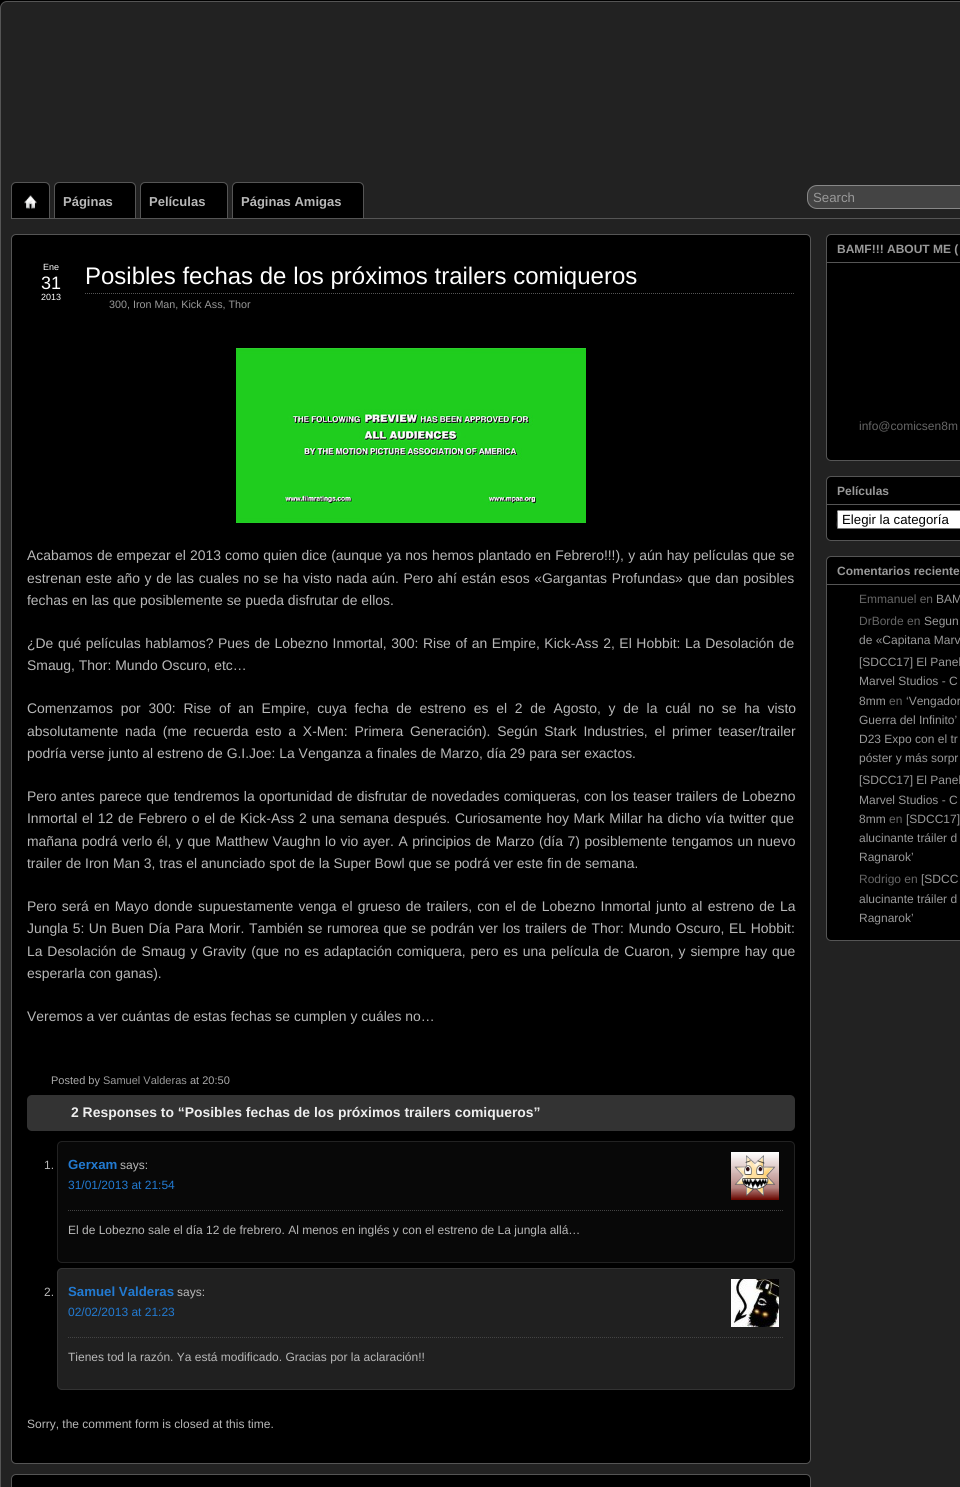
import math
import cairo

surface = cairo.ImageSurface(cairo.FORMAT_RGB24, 960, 1487)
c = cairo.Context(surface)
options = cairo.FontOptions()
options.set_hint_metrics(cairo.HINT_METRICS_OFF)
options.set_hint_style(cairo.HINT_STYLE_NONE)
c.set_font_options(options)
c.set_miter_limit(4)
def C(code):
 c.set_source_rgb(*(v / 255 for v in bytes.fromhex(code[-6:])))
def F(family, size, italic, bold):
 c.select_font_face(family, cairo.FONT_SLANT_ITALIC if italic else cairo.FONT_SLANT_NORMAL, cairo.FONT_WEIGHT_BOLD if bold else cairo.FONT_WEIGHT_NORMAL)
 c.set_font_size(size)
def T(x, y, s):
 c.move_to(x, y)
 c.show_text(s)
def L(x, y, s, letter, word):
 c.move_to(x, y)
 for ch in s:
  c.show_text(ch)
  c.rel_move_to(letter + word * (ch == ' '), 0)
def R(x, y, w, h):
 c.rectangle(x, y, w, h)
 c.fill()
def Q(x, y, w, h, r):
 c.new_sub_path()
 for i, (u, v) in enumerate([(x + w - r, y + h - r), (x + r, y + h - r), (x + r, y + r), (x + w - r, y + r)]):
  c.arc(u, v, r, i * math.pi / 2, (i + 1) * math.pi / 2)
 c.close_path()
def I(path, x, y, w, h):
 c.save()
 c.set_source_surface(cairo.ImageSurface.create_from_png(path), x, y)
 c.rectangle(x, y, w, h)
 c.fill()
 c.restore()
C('000000')
c.paint()
C('222222')
Q(.5,1.5,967,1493,6.5)
c.fill_preserve()
C('555555')
c.set_line_width(1)
c.stroke()
R(50,218,910,1)
c.new_path()
c.move_to(16,182.5)
c.line_to(45,182.5)
c.curve_to(47.5,182.5,49.5,184.5,49.5,187)
c.line_to(49.5,218.5)
c.line_to(11.5,218.5)
c.line_to(11.5,187)
c.curve_to(11.5,184.5,13.5,182.5,16,182.5)
c.close_path()
c.stroke()
C('000000')
c.new_path()
c.move_to(17,183)
c.line_to(44,183)
c.curve_to(47,183,49,185,49,188)
c.line_to(49,218)
c.line_to(12,218)
c.line_to(12,188)
c.curve_to(12,185,14,183,17,183)
c.close_path()
c.fill()
I('1.png',24,195,13,14)
c.new_path()
c.move_to(59,182.5)
c.line_to(131,182.5)
c.curve_to(133.5,182.5,135.5,184.5,135.5,187)
c.line_to(135.5,218.5)
c.line_to(54.5,218.5)
c.line_to(54.5,187)
c.curve_to(54.5,184.5,56.5,182.5,59,182.5)
c.close_path()
C('555555')
c.stroke()
C('000000')
c.new_path()
c.move_to(60,183)
c.line_to(130,183)
c.curve_to(133,183,135,185,135,188)
c.line_to(135,218)
c.line_to(55,218)
c.line_to(55,188)
c.curve_to(55,185,57,183,60,183)
c.close_path()
c.fill()
F('Liberation Sans',13,0,1)
C('b8b8b8')
T(63,206,'Páginas')
c.new_path()
c.move_to(145,182.5)
c.line_to(223,182.5)
c.curve_to(225.5,182.5,227.5,184.5,227.5,187)
c.line_to(227.5,218.5)
c.line_to(140.5,218.5)
c.line_to(140.5,187)
c.curve_to(140.5,184.5,142.5,182.5,145,182.5)
c.close_path()
C('555555')
c.stroke()
C('000000')
c.new_path()
c.move_to(146,183)
c.line_to(222,183)
c.curve_to(225,183,227,185,227,188)
c.line_to(227,218)
c.line_to(141,218)
c.line_to(141,188)
c.curve_to(141,185,143,183,146,183)
c.close_path()
c.fill()
C('b8b8b8')
T(149,206,'Películas')
c.new_path()
c.move_to(237,182.5)
c.line_to(359,182.5)
c.curve_to(361.5,182.5,363.5,184.5,363.5,187)
c.line_to(363.5,218.5)
c.line_to(232.5,218.5)
c.line_to(232.5,187)
c.curve_to(232.5,184.5,234.5,182.5,237,182.5)
c.close_path()
C('555555')
c.stroke()
C('000000')
c.new_path()
c.move_to(238,183)
c.line_to(358,183)
c.curve_to(361,183,363,185,363,188)
c.line_to(363,218)
c.line_to(233,218)
c.line_to(233,188)
c.curve_to(233,185,235,183,238,183)
c.close_path()
c.fill()
C('b8b8b8')
T(241,206,'Páginas Amigas')
C('444444')
Q(807.5,185.5,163,23,9.5)
c.fill_preserve()
C('888888')
c.stroke()
F('Liberation Sans',13.25,0,0)
C('999999')
T(813,202,'Search')
C('000000')
Q(11.5,234.5,799,1229,4.5)
c.fill_preserve()
C('555555')
c.stroke()
F('Liberation Sans',9,0,0)
C('ffffff')
T(43,270,'Ene')
F('Liberation Sans',18,0,0)
T(41,289,'31')
F('Liberation Sans',9,0,0)
T(41,300,'2013')
c.new_path()
c.move_to(85,293.5)
c.line_to(795,293.5)
C('555555')
c.set_dash([1,1])
c.stroke()
F('Liberation Sans',24,0,0)
C('ffffff')
T(85,284,'Posibles fechas de los próximos trailers comiqueros')
F('Liberation Sans',10.75,0,0)
C('999999')
T(109,308,'300, Iron Man, Kick Ass, Thor')
I('2.png',236,348,350,175)
F('Liberation Sans',13.92,0,0)
C('b8b8b8')
L(27,560,'Acabamos de empezar el 2013 como quien dice (aunque ya nos hemos plantado en Febrero!!!), y aún hay películas que se',0,.3)
L(27,583,'estrenan este año y de las cuales no se ha visto nada aún. Pero ahí están esos «Gargantas Profundas» que dan posibles',0,.75)
T(27,605,'fechas en las que posiblemente se pueda disfrutar de ellos.')
L(27,648,'¿De qué películas hablamos? Pues de Lobezno Inmortal, 300: Rise of an Empire, Kick-Ass 2, El Hobbit: La Desolación de',0,.75)
T(27,670,'Smaug, Thor: Mundo Oscuro, etc…')
L(27,713,'Comenzamos por 300: Rise of an Empire, cuya fecha de estreno es el 2 de Agosto, y de la cuál no se ha visto',0,3.9)
L(27,736,'absolutamente nada (me recuerda esto a X-Men: Primera Generación). Según Stark Industries, el primer teaser/trailer',0,2.9)
T(27,758,'podría verse junto al estreno de G.I.Joe: La Venganza a finales de Marzo, día 29 para ser exactos.')
L(27,801,'Pero antes parece que tendremos la oportunidad de disfrutar de novedades comiqueras, con los teaser trailers de Lobezno',0,.5)
L(27,823,'Inmortal el 12 de Febrero o el de Kick-Ass 2 una semana después. Curiosamente hoy Mark Millar ha dicho vía twitter que',0,.9)
L(27,846,'mañana podrá verlo él, y que Matthew Vaughn lo vio ayer. A principios de Marzo (día 7) posiblemente tengamos un nuevo',0,.7)
T(27,868,'trailer de Iron Man 3, tras el anunciado spot de la Super Bowl que se podrá ver este fin de semana.')
L(27,911,'Pero será en Mayo donde supuestamente venga el grueso de trailers, con el de Lobezno Inmortal junto al estreno de La',0,1.4)
L(27,933,'Jungla 5: Un Buen Día Para Morir. También se rumorea que se podrán ver los trailers de Thor: Mundo Oscuro, EL Hobbit:',0,.75)
L(27,956,'La Desolación de Smaug y Gravity (que no es adaptación comiquera, pero es una película de Cuaron, y siempre hay que',0,1)
T(27,978,'esperarla con ganas).')
T(27,1021,'Veremos a ver cuántas de estas fechas se cumplen y cuáles no…')
F('Liberation Sans',11,0,0)
C('aaaaaa')
T(51,1084,'Posted by')
C('999999')
T(103,1084,'Samuel Valderas')
C('aaaaaa')
T(190,1084,'at 20:50')
C('333333')
Q(27,1095,768,36,5)
c.fill()
F('Liberation Sans',13.92,0,1)
C('eeeeee')
T(71,1117,'2 Responses to “Posibles fechas de los próximos trailers comiqueros”')
C('080808')
Q(57.5,1141.5,737,121,4.5)
c.fill_preserve()
C('222222')
c.set_dash([])
c.stroke()
F('Liberation Sans',12,0,0)
C('b8b8b8')
T(44,1169,'1.')
c.new_path()
c.move_to(68,1210.5)
c.line_to(784,1210.5)
C('444444')
c.set_dash([1,1])
c.stroke()
F('Liberation Sans',13.25,0,1)
C('227ad1')
T(68,1169,'Gerxam')
F('Liberation Sans',12,0,0)
C('b8b8b8')
T(120,1169,'says:')
I('3.png',731,1152,48,48)
C('227ad1')
T(68,1189,'31/01/2013 at 21:54')
C('b8b8b8')
T(68,1234,'El de Lobezno sale el día 12 de frebrero. Al menos en inglés y con el estreno de La jungla allá…')
C('202020')
Q(57.5,1268.5,737,121,4.5)
c.fill_preserve()
C('333333')
c.set_dash([])
c.stroke()
C('b8b8b8')
T(44,1296,'2.')
c.new_path()
c.move_to(68,1337.5)
c.line_to(784,1337.5)
C('444444')
c.set_dash([1,1])
c.stroke()
F('Liberation Sans',13.25,0,1)
C('227ad1')
T(68,1296,'Samuel Valderas')
F('Liberation Sans',12,0,0)
C('b8b8b8')
T(177,1296,'says:')
I('4.png',731,1279,48,48)
C('227ad1')
T(68,1316,'02/02/2013 at 21:23')
C('b8b8b8')
T(68,1361,'Tienes tod la razón. Ya está modificado. Gracias por la aclaración!!')
T(27,1428,'Sorry, the comment form is closed at this time.')
C('000000')
Q(11.5,1474.5,799,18,4.5)
c.fill_preserve()
C('555555')
c.set_dash([])
c.stroke()
C('000000')
Q(826.5,234.5,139,226,4.5)
c.fill_preserve()
C('555555')
c.stroke()
R(827,262,133,1)
F('Liberation Sans',12,0,1)
C('999999')
T(837,253,'BAMF!!! ABOUT ME (')
F('Liberation Sans',12,0,0)
C('666666')
T(859,430,'info@comicsen8m')
C('000000')
Q(826.5,476.5,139,64,4.5)
c.fill_preserve()
C('555555')
c.stroke()
R(827,504,133,1)
F('Liberation Sans',12,0,1)
C('999999')
T(837,495,'Películas')
C('ffffff')
c.new_path()
c.move_to(839,510)
c.line_to(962,510)
c.line_to(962,529)
c.line_to(839,529)
c.curve_to(838,529,837,528,837,527)
c.line_to(837,512)
c.curve_to(837,511,838,510,839,510)
c.close_path()
c.fill()
C('767676')
c.new_path()
c.move_to(839,510)
c.curve_to(836,510,837,518,837,520)
c.curve_to(837,521,836,528,838,529)
c.line_to(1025,529)
c.line_to(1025,528)
c.line_to(839,528)
c.curve_to(838,528,838,528,838,527)
c.line_to(838,512)
c.curve_to(838,511,838,511,839,511)
c.line_to(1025,511)
c.line_to(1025,510)
c.close_path()
c.fill()
F('Liberation Sans',13.25,0,0)
C('000000')
T(842,524,'Elegir la categoría')
Q(826.5,556.5,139,384,4.5)
c.fill_preserve()
C('555555')
c.stroke()
R(827,584,133,1)
F('Liberation Sans',12,0,1)
C('999999')
T(837,575,'Comentarios reciente')
F('Liberation Sans',12,0,0)
C('666666')
T(859,603,'Emmanuel en')
C('999999')
T(936,603,'BAM')
C('666666')
T(859,625,'DrBorde en')
C('999999')
T(924,625,'Segun')
T(859,644,'de «Capitana Marv')
T(859,666,'[SDCC17] El Panel')
T(859,685,'Marvel Studios - C')
T(859,705,'8mm')
C('666666')
T(889,705,'en')
C('999999')
T(906,705,'‘Vengador')
T(859,724,'Guerra del Infinito’')
T(859,743,'D23 Expo con el tr')
T(859,762,'póster y más sorpr')
T(859,784,'[SDCC17] El Panel')
T(859,804,'Marvel Studios - C')
T(859,823,'8mm')
C('666666')
T(889,823,'en')
C('999999')
T(906,823,'[SDCC17]')
T(859,842,'alucinante tráiler d')
T(859,861,'Ragnarok’')
C('666666')
T(859,883,'Rodrigo en')
C('999999')
T(921,883,'[SDCC')
T(859,903,'alucinante tráiler d')
T(859,922,'Ragnarok’')
surface.write_to_png('o.png')
